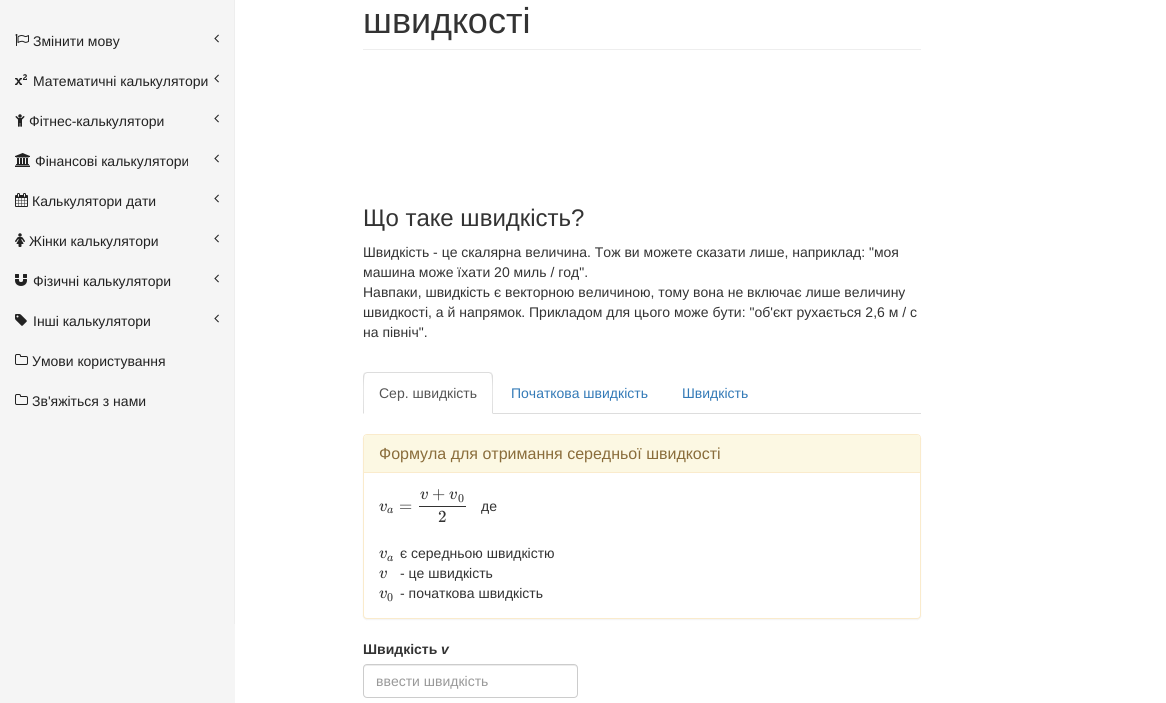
import math
import cairo

surface = cairo.ImageSurface(cairo.FORMAT_RGB24, 1166, 703)
c = cairo.Context(surface)
options = cairo.FontOptions()
options.set_hint_metrics(cairo.HINT_METRICS_OFF)
options.set_hint_style(cairo.HINT_STYLE_NONE)
c.set_font_options(options)
c.set_miter_limit(4)
def C(code):
 c.set_source_rgb(*(v / 255 for v in bytes.fromhex(code[-6:])))
def F(family, size, italic, bold):
 c.select_font_face(family, cairo.FONT_SLANT_ITALIC if italic else cairo.FONT_SLANT_NORMAL, cairo.FONT_WEIGHT_BOLD if bold else cairo.FONT_WEIGHT_NORMAL)
 c.set_font_size(size)
def T(x, y, s):
 c.move_to(x, y)
 c.show_text(s)
def R(x, y, w, h):
 c.rectangle(x, y, w, h)
 c.fill()
def Q(x, y, w, h, r):
 c.new_sub_path()
 for i, (u, v) in enumerate([(x + w - r, y + h - r), (x + r, y + h - r), (x + r, y + r), (x + w - r, y + r)]):
  c.arc(u, v, r, i * math.pi / 2, (i + 1) * math.pi / 2)
 c.close_path()
def S(x, y, w, h, r, blur, alpha):
 c.push_group_with_content(cairo.CONTENT_ALPHA)
 c.set_operator(cairo.OPERATOR_SOURCE)
 for i in range(15, -16, -2):
  e = blur * i / 6
  if min(w, h) + 2 * e > 0:
   c.set_source_rgba(0, 0, 0, alpha * math.erfc((i - 1) / 8.5) / 2)
   Q(x - e, y - e, w + 2 * e, h + 2 * e, max(0, min(r + e + blur * .6, min(w, h) / 2 + e)))
   c.fill()
 c.mask(c.pop_group())
def I(path, x, y, w, h):
 c.save()
 c.set_source_surface(cairo.ImageSurface.create_from_png(path), x, y)
 c.rectangle(x, y, w, h)
 c.fill()
 c.restore()
C('f5f5f5')
c.paint()
I('1.png',15,34,14,12)
F('Liberation Sans',14,0,0)
C('222222')
T(33,46,'Змінити мову')
I('2.png',214,34,5,9)
I('3.png',15,74,12,11)
T(33,86,'Математичні калькулятори')
I('2.png',214,74,5,9)
I('4.png',15,114,10,13)
T(29,126,'Фітнес-калькулятори')
I('2.png',214,114,5,9)
I('5.png',15,153,15,14)
T(35,166,'Фінансові калькулятори')
I('2.png',214,154,5,9)
I('6.png',15,193,13,14)
T(32,206,'Калькулятори дати')
I('2.png',214,194,5,9)
I('7.png',15,233,10,14)
T(29,246,'Жінки калькулятори')
I('2.png',214,234,5,9)
I('8.png',15,274,12,12)
T(33,286,'Фізичні калькулятори')
I('2.png',214,274,5,9)
I('9.png',15,314,12,12)
T(33,326,'Інші калькулятори')
I('2.png',214,314,5,9)
I('10.png',15,354,13,11)
T(32,366,'Умови користування')
I('10.png',15,394,13,11)
T(32,406,'Зв\'яжіться з нами')
C('eeeeee')
R(234,0,1,624)
C('ffffff')
R(235,0,931,703)
C('eeeeee')
R(363,49,558,1)
F('Liberation Sans',36,0,0)
C('333333')
T(363,33,'швидкості')
F('Liberation Sans',24,0,0)
T(363,226,'Що таке швидкість?')
F('Liberation Sans',14,0,0)
T(363,257,'Швидкість - це скалярна величина. Тож ви можете сказати лише, наприклад: "моя')
T(363,277,'машина може їхати 20 миль / год".')
T(363,297,'Навпаки, швидкість є векторною величиною, тому вона не включає лише величину')
T(363,317,'швидкості, а й напрямок. Прикладом для цього може бути: "об\'єкт рухається 2,6 м / с')
T(363,337,'на північ".')
C('dddddd')
R(493,413,428,1)
c.new_path()
c.move_to(367,372)
c.line_to(364,373)
c.line_to(365,374)
c.line_to(367,373)
c.line_to(489,373)
c.line_to(491,374)
c.line_to(492,373)
c.line_to(489,372)
c.close_path()
c.fill()
c.new_path()
c.move_to(493,414)
c.line_to(493,376)
c.curve_to(493,375,492,374,492,373)
c.line_to(491,374)
c.curve_to(493,376,492,408,492,413)
c.close_path()
c.fill()
c.new_path()
c.move_to(363,414)
c.line_to(364,413)
c.curve_to(364,408,363,376,365,374)
c.line_to(364,373)
c.line_to(363,376)
c.close_path()
c.fill()
C('555555')
T(379,398,'Сер. швидкість')
C('337ab7')
T(511,398,'Початкова швидкість')
T(682,398,'Швидкість')
C('000000')
S(363,435,558,185,4,.5,.05)
C('ffffff')
Q(363.5,434.5,557,184,3.5)
c.fill_preserve()
C('faebcc')
c.set_line_width(1)
c.stroke()
C('fcf8e3')
c.new_path()
c.move_to(367,435)
c.line_to(917,435)
c.curve_to(918.5,435,920,436.5,920,438)
c.line_to(920,472)
c.line_to(364,472)
c.line_to(364,438)
c.curve_to(364,436.5,365.5,435,367,435)
c.close_path()
c.fill()
F('Liberation Sans',16,0,0)
C('8a6d3b')
T(379,459,'Формула для отримання середньої швидкості')
C('faebcc')
R(364,472,556,1)
F('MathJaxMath',17,1,0)
C('333333')
T(379,511,'v')
F('MathJaxMath',12,1,0)
T(387,513,'a')
F('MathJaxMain',17,0,0)
T(399,511,'=')
F('MathJaxMath',17,1,0)
T(420,499,'v')
F('MathJaxMain',17,0,0)
T(432,499,'+')
F('MathJaxMath',17,1,0)
T(449,499,'v')
F('MathJaxMain',12,0,0)
T(458,502,'0')
R(419,506,47,1)
F('MathJaxMain',17,0,0)
T(438,522,'2')
F('Liberation Sans',14,0,0)
T(481,511,'де')
F('MathJaxMath',17,1,0)
T(379,558,'v')
F('MathJaxMath',12,1,0)
T(387,561,'a')
F('Liberation Sans',14,0,0)
T(400,558,'є середньою швидкістю')
F('MathJaxMath',17,1,0)
T(379,578,'v')
F('Liberation Sans',14,0,0)
T(400,578,'- це швидкість')
F('MathJaxMath',17,1,0)
T(379,598,'v')
F('MathJaxMain',12,0,0)
T(387,601,'0')
F('Liberation Sans',14,0,0)
T(400,598,'- початкова швидкість')
F('Liberation Sans',14,0,1)
T(363,654,'Швидкість')
F('Liberation Sans',14,1,1)
T(441,654,'v')
C('ececec')
c.new_path()
c.move_to(367,666)
c.line_to(574,666)
c.curve_to(576,666,577,667,577,669)
c.line_to(577,668)
c.curve_to(577,666,576,665,574,665)
c.line_to(367,665)
c.curve_to(365,665,364,666,364,668)
c.line_to(364,669)
c.curve_to(364,667,365,666,367,666)
c.close_path()
c.fill()
Q(363.5,664.5,214,33,3.5)
C('cccccc')
c.stroke()
F('Liberation Sans',14,0,0)
C('999999')
T(376,686,'ввести швидкість')
surface.write_to_png('o.png')
